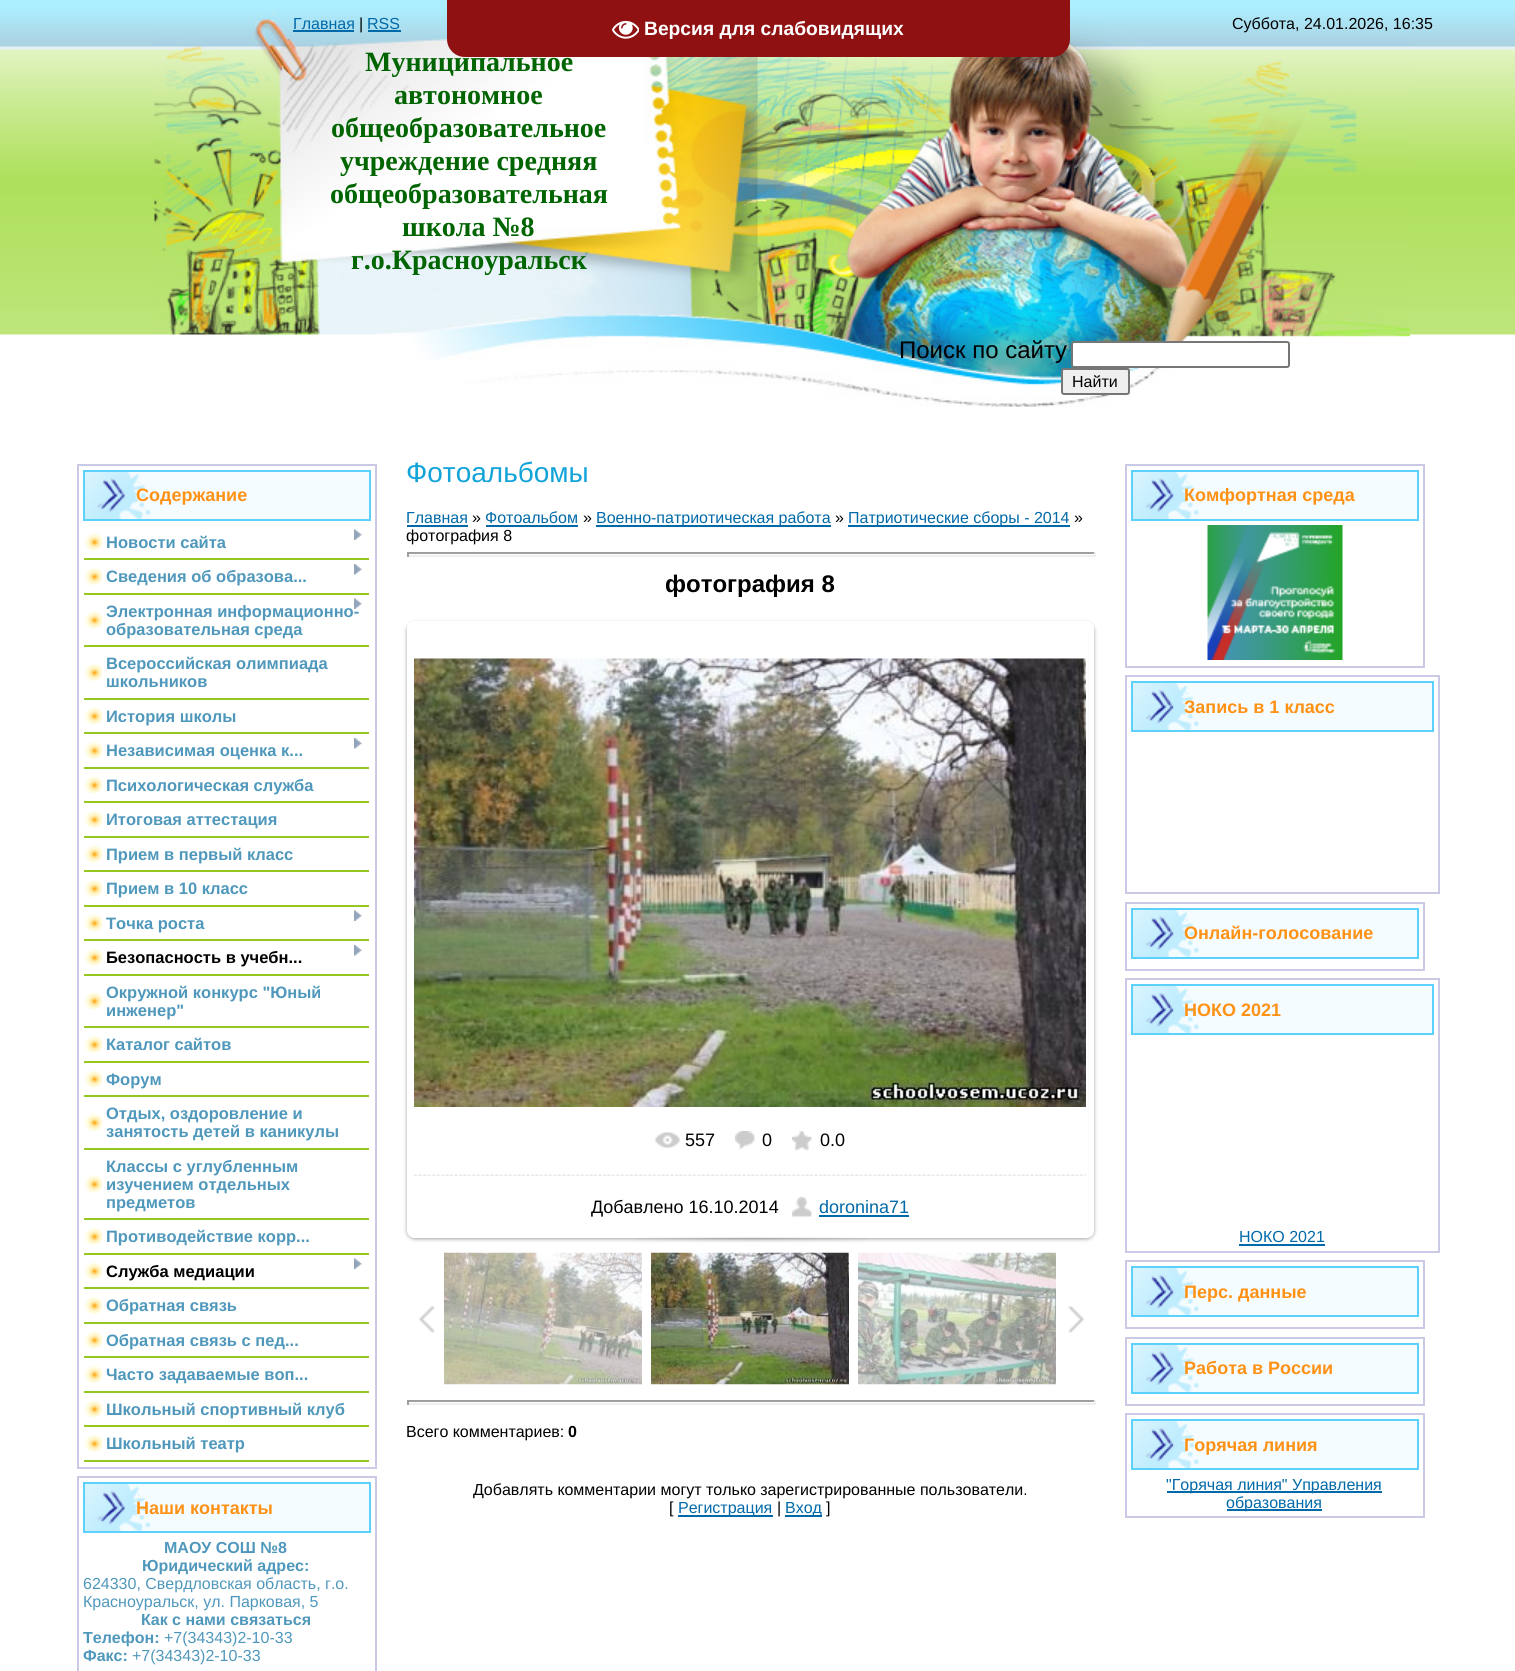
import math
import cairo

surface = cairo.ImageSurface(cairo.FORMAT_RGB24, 1515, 1671)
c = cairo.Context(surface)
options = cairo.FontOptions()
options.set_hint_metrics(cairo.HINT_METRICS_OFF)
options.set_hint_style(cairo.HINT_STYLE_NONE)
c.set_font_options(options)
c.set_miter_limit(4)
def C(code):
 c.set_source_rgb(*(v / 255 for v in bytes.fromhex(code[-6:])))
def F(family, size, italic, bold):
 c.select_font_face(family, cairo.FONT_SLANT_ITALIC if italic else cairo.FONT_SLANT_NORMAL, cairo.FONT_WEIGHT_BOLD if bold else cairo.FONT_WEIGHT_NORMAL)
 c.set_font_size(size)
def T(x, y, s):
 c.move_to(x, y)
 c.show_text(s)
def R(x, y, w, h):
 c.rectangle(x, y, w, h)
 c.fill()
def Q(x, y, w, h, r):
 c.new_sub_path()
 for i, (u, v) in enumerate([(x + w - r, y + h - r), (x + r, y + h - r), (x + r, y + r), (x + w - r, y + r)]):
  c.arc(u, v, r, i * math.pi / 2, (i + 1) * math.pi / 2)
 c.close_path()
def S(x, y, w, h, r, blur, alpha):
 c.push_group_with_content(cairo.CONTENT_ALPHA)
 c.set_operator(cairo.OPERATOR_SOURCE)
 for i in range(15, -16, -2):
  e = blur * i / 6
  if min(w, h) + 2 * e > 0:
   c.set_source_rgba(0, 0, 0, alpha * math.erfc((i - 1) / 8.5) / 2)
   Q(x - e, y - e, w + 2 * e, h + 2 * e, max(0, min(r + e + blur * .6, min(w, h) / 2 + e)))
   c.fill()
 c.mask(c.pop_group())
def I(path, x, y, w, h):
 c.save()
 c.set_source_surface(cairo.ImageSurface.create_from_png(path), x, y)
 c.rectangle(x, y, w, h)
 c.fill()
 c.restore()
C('ffffff')
c.paint()
I('1.png',0,0,1515,335)
I('2.png',153,12,1257,395)
F('Liberation Sans',16,0,0)
C('0069a9')
T(293,29,'Главная')
R(293,30,61,2)
C('000000')
T(359,29,'|')
C('0069a9')
T(367,29,'RSS')
R(368,30,33,2)
C('000000')
T(1232,29,'Суббота, 24.01.2026, 16:35')
F('Liberation Serif',28,0,1)
C('006400')
T(365,71,'Муниципальное')
T(394,104,'автономное')
T(331,137,'общеобразовательное')
T(340,170,'учреждение средняя')
T(330,203,'общеобразовательная')
T(402,236,'школа №8')
T(351,269,'г.о.Красноуральск')
F('Liberation Sans',24,0,0)
C('000000')
T(899,358,'Поиск по сайту')
C('ffffff')
Q(1072,342,217,25,2)
c.fill_preserve()
C('767676')
c.stroke()
C('efefef')
Q(1062,369,67,25,2)
c.fill_preserve()
C('767676')
c.stroke()
F('Liberation Sans',16,0,0)
C('000000')
T(1072,387,'Найти')
c.rectangle(78,465,298,1003)
C('cacae6')
c.stroke()
C('f5fcff')
R(151,472,218,47)
I('3.png',85,472,66,47)
c.rectangle(84,471,286,49)
C('5bd1fc')
c.stroke()
F('Liberation Sans',18,0,1)
C('ff9115')
T(136,501,'Содержание')
I('4.png',84,532,19,19)
C('97c821')
R(84,558,285,2)
F('Liberation Sans',16.5,0,1)
C('4f98bc')
T(106,548,'Новости сайта')
I('5.png',354,529,8,11)
I('6.png',84,567,19,18)
C('97c821')
R(84,593,285,2)
C('4f98bc')
T(106,582,'Сведения об образова...')
I('7.png',354,564,8,11)
I('4.png',84,610,19,19)
C('97c821')
R(84,645,285,2)
C('4f98bc')
T(106,617,'Электронная информационно-')
I('5.png',354,598,8,11)
T(106,635,'образовательная среда')
I('6.png',84,663,19,18)
C('97c821')
R(84,698,285,2)
C('4f98bc')
T(106,669,'Всероссийская олимпиада')
T(106,687,'школьников')
I('4.png',84,706,19,19)
C('97c821')
R(84,732,285,2)
C('4f98bc')
T(106,722,'История школы')
I('6.png',84,741,19,18)
C('97c821')
R(84,767,285,2)
C('4f98bc')
T(106,756,'Независимая оценка к...')
I('7.png',354,738,8,11)
I('4.png',84,775,19,19)
C('97c821')
R(84,801,285,2)
C('4f98bc')
T(106,791,'Психологическая служба')
I('6.png',84,810,19,18)
C('97c821')
R(84,836,285,2)
C('4f98bc')
T(106,825,'Итоговая аттестация')
I('4.png',84,844,19,19)
C('97c821')
R(84,870,285,2)
C('4f98bc')
T(106,860,'Прием в первый класс')
I('6.png',84,879,19,18)
C('97c821')
R(84,905,285,2)
C('4f98bc')
T(106,894,'Прием в 10 класс')
I('4.png',84,913,19,19)
C('97c821')
R(84,939,285,2)
I('5.png',354,910,8,11)
C('4f98bc')
T(106,929,'Точка роста')
I('6.png',84,948,19,18)
C('97c821')
R(84,974,285,2)
C('000000')
T(106,963,'Безопасность в учебн...')
I('7.png',354,945,8,11)
I('4.png',84,991,19,19)
C('97c821')
R(84,1026,285,2)
C('4f98bc')
T(106,998,'Окружной конкурс "Юный')
T(106,1016,'инженер"')
I('6.png',84,1035,19,18)
C('97c821')
R(84,1061,285,2)
C('4f98bc')
T(106,1050,'Каталог сайтов')
I('4.png',84,1069,19,19)
C('97c821')
R(84,1095,285,2)
C('4f98bc')
T(106,1085,'Форум')
I('6.png',84,1113,19,18)
C('97c821')
R(84,1148,285,2)
C('4f98bc')
T(106,1119,'Отдых, оздоровление и')
T(106,1137,'занятость детей в каникулы')
I('4.png',84,1174,19,19)
C('97c821')
R(84,1218,285,2)
C('4f98bc')
T(106,1172,'Классы с углубленным')
T(106,1190,'изучением отдельных')
T(106,1208,'предметов')
I('6.png',84,1227,19,18)
C('97c821')
R(84,1253,285,2)
C('4f98bc')
T(106,1242,'Противодействие корр...')
I('4.png',84,1261,19,19)
C('97c821')
R(84,1287,285,2)
C('000000')
T(106,1277,'Служба медиации')
I('5.png',354,1258,8,11)
I('6.png',84,1296,19,18)
C('97c821')
R(84,1322,285,2)
C('4f98bc')
T(106,1311,'Обратная связь')
I('4.png',84,1330,19,19)
C('97c821')
R(84,1356,285,2)
C('4f98bc')
T(106,1346,'Обратная связь с пед...')
I('6.png',84,1365,19,18)
C('97c821')
R(84,1391,285,2)
C('4f98bc')
T(106,1380,'Часто задаваемые воп...')
I('4.png',84,1399,19,19)
C('97c821')
R(84,1425,285,2)
C('4f98bc')
T(106,1415,'Школьный спортивный клуб')
I('6.png',84,1434,19,18)
C('97c821')
R(84,1460,285,2)
C('4f98bc')
T(106,1449,'Школьный театр')
c.rectangle(78,1477,298,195)
C('cacae6')
c.stroke()
C('f5fcff')
R(151,1484,218,47)
I('8.png',85,1484,66,47)
c.rectangle(84,1483,286,49)
C('5bd1fc')
c.stroke()
F('Liberation Sans',18,0,1)
C('ff9115')
T(136,1514,'Наши контакты')
F('Liberation Sans',16,0,1)
C('4f98bc')
T(164,1553,'МАОУ СОШ №8')
T(142,1571,'Юридический адрес:')
F('Liberation Sans',16,0,0)
T(83,1589,'624330, Свердловская область, г.о.')
T(83,1607,'Красноуральск, ул. Парковая, 5')
F('Liberation Sans',16,0,1)
T(141,1625,'Как с нами связаться')
T(83,1643,'Телефон:')
F('Liberation Sans',16,0,0)
T(164,1643,'+7(34343)2-10-33')
F('Liberation Sans',16,0,1)
T(83,1661,'Факс:')
F('Liberation Sans',16,0,0)
T(132,1661,'+7(34343)2-10-33')
F('Liberation Sans',28,0,0)
C('12a4d8')
T(406,482,'Фотоальбомы')
F('Liberation Sans',16,0,0)
C('0069a9')
T(406,523,'Главная')
R(407,525,61,2)
C('000000')
T(472,523,'»')
C('0069a9')
T(485,523,'Фотоальбом')
R(486,525,92,2)
C('000000')
T(583,523,'»')
C('0069a9')
R(596,525,235,2)
T(596,523,'Военно-патриотическая работа')
C('000000')
T(835,523,'»')
C('0069a9')
R(848,525,222,2)
T(848,523,'Патриотические сборы - 2014')
C('000000')
T(1074,523,'»')
T(406,541,'фотография 8')
C('9f9f9f')
R(407,552,688,2)
C('eeeeee')
R(1094,552,2,5)
R(407,555,688,2)
C('9f9f9f')
R(407,552,2,5)
F('Liberation Sans',24,0,1)
C('000000')
T(665,592,'фотография 8')
c.save()
c.set_fill_rule(cairo.FILL_RULE_EVEN_ODD)
c.new_path()
c.move_to(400,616)
c.line_to(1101,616)
c.line_to(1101,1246)
c.line_to(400,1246)
c.close_path()
c.move_to(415,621)
c.line_to(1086,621)
c.curve_to(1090.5,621,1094,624.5,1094,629)
c.line_to(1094,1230)
c.curve_to(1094,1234.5,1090.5,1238,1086,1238)
c.line_to(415,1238)
c.curve_to(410.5,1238,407,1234.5,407,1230)
c.line_to(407,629)
c.curve_to(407,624.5,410.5,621,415,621)
c.close_path()
c.clip()
C('000000')
S(407,623,687,616,8,2,.37)
c.restore()
I('9.png',414,658,672,449)
I('10.png',655,1132,25,16)
F('Liberation Sans',18,0,0)
T(685,1146,'557')
I('11.png',735,1131,20,18)
T(762,1146,'0')
I('12.png',792,1131,20,20)
T(820,1146,'0.0')
I('13.png',414,1174,672,2)
T(591,1213,'Добавлено 16.10.2014')
I('14.png',792,1197,20,20)
C('0069a9')
T(819,1213,'doronina71')
R(819,1215,90,2)
I('15.png',634,1237,233,5)
I('16.png',418,1306,17,27)
I('17.png',444,1252,198,133)
I('18.png',651,1252,198,133)
I('19.png',858,1252,198,133)
I('20.png',1068,1306,17,27)
C('9f9f9f')
R(407,1400,688,2)
C('eeeeee')
R(1094,1400,2,5)
R(407,1403,688,2)
C('9f9f9f')
R(407,1400,2,5)
F('Liberation Sans',16,0,0)
C('000000')
T(406,1437,'Всего комментариев:')
F('Liberation Sans',16,0,1)
T(568,1437,'0')
F('Liberation Sans',16,0,0)
T(473,1495,'Добавлять комментарии могут только зарегистрированные пользователи.')
T(669,1513,'[')
C('0069a9')
R(678,1515,95,2)
T(678,1513,'Регистрация')
C('000000')
T(777,1513,'|')
C('0069a9')
R(785,1515,37,2)
T(785,1513,'Вход')
C('000000')
T(826,1513,']')
c.rectangle(1126,465,298,202)
C('cacae6')
c.stroke()
C('f5fcff')
R(1199,472,218,47)
I('21.png',1133,472,66,47)
c.rectangle(1132,471,286,49)
C('5bd1fc')
c.stroke()
F('Liberation Sans',18,0,1)
C('ff9115')
T(1184,501,'Комфортная среда')
I('22.png',1207,525,136,135)
c.rectangle(1126,676,313,217)
C('cacae6')
c.stroke()
C('f5fcff')
R(1199,683,233,47)
I('23.png',1133,683,66,47)
c.rectangle(1132,682,301,49)
C('5bd1fc')
c.stroke()
C('ff9115')
T(1184,713,'Запись в 1 класс')
c.rectangle(1126,903,298,67)
C('cacae6')
c.stroke()
C('f5fcff')
R(1199,910,218,47)
I('21.png',1133,910,66,47)
c.rectangle(1132,909,286,49)
C('5bd1fc')
c.stroke()
C('ff9115')
T(1184,939,'Онлайн-голосование')
c.rectangle(1126,979,313,273)
C('cacae6')
c.stroke()
C('f5fcff')
R(1199,986,233,47)
I('23.png',1133,986,66,47)
c.rectangle(1132,985,301,49)
C('5bd1fc')
c.stroke()
C('ff9115')
T(1184,1016,'НОКО 2021')
F('Liberation Sans',16,0,0)
C('0069a9')
T(1239,1242,'НОКО 2021')
R(1239,1244,86,2)
c.rectangle(1126,1261,298,67)
C('cacae6')
c.stroke()
C('f5fcff')
R(1199,1268,218,47)
I('23.png',1133,1268,66,47)
c.rectangle(1132,1267,286,49)
C('5bd1fc')
c.stroke()
F('Liberation Sans',18,0,1)
C('ff9115')
T(1184,1298,'Перс. данные')
c.rectangle(1126,1338,298,67)
C('cacae6')
c.stroke()
C('f5fcff')
R(1199,1345,218,47)
I('21.png',1133,1345,66,47)
c.rectangle(1132,1344,286,49)
C('5bd1fc')
c.stroke()
C('ff9115')
T(1184,1374,'Работа в России')
c.rectangle(1126,1414,298,103)
C('cacae6')
c.stroke()
C('f5fcff')
R(1199,1421,218,47)
I('23.png',1133,1421,66,47)
c.rectangle(1132,1420,286,49)
C('5bd1fc')
c.stroke()
C('ff9115')
T(1184,1451,'Горячая линия')
C('0069a9')
R(1167,1491,215,2)
F('Liberation Sans',16,0,0)
T(1166,1490,'"Горячая линия" Управления')
R(1227,1509,95,2)
T(1226,1508,'образования')
C('8f1111')
c.new_path()
c.move_to(447,0)
c.line_to(1070,0)
c.line_to(1070,39)
c.curve_to(1070,49,1062,57,1052,57)
c.line_to(465,57)
c.curve_to(455,57,447,49,447,39)
c.close_path()
c.fill()
I('24.png',612,20,27,19)
F('Liberation Sans',19.25,0,1)
C('ffffff')
T(644,35,'Версия для слабовидящих')
surface.write_to_png('o.png')
